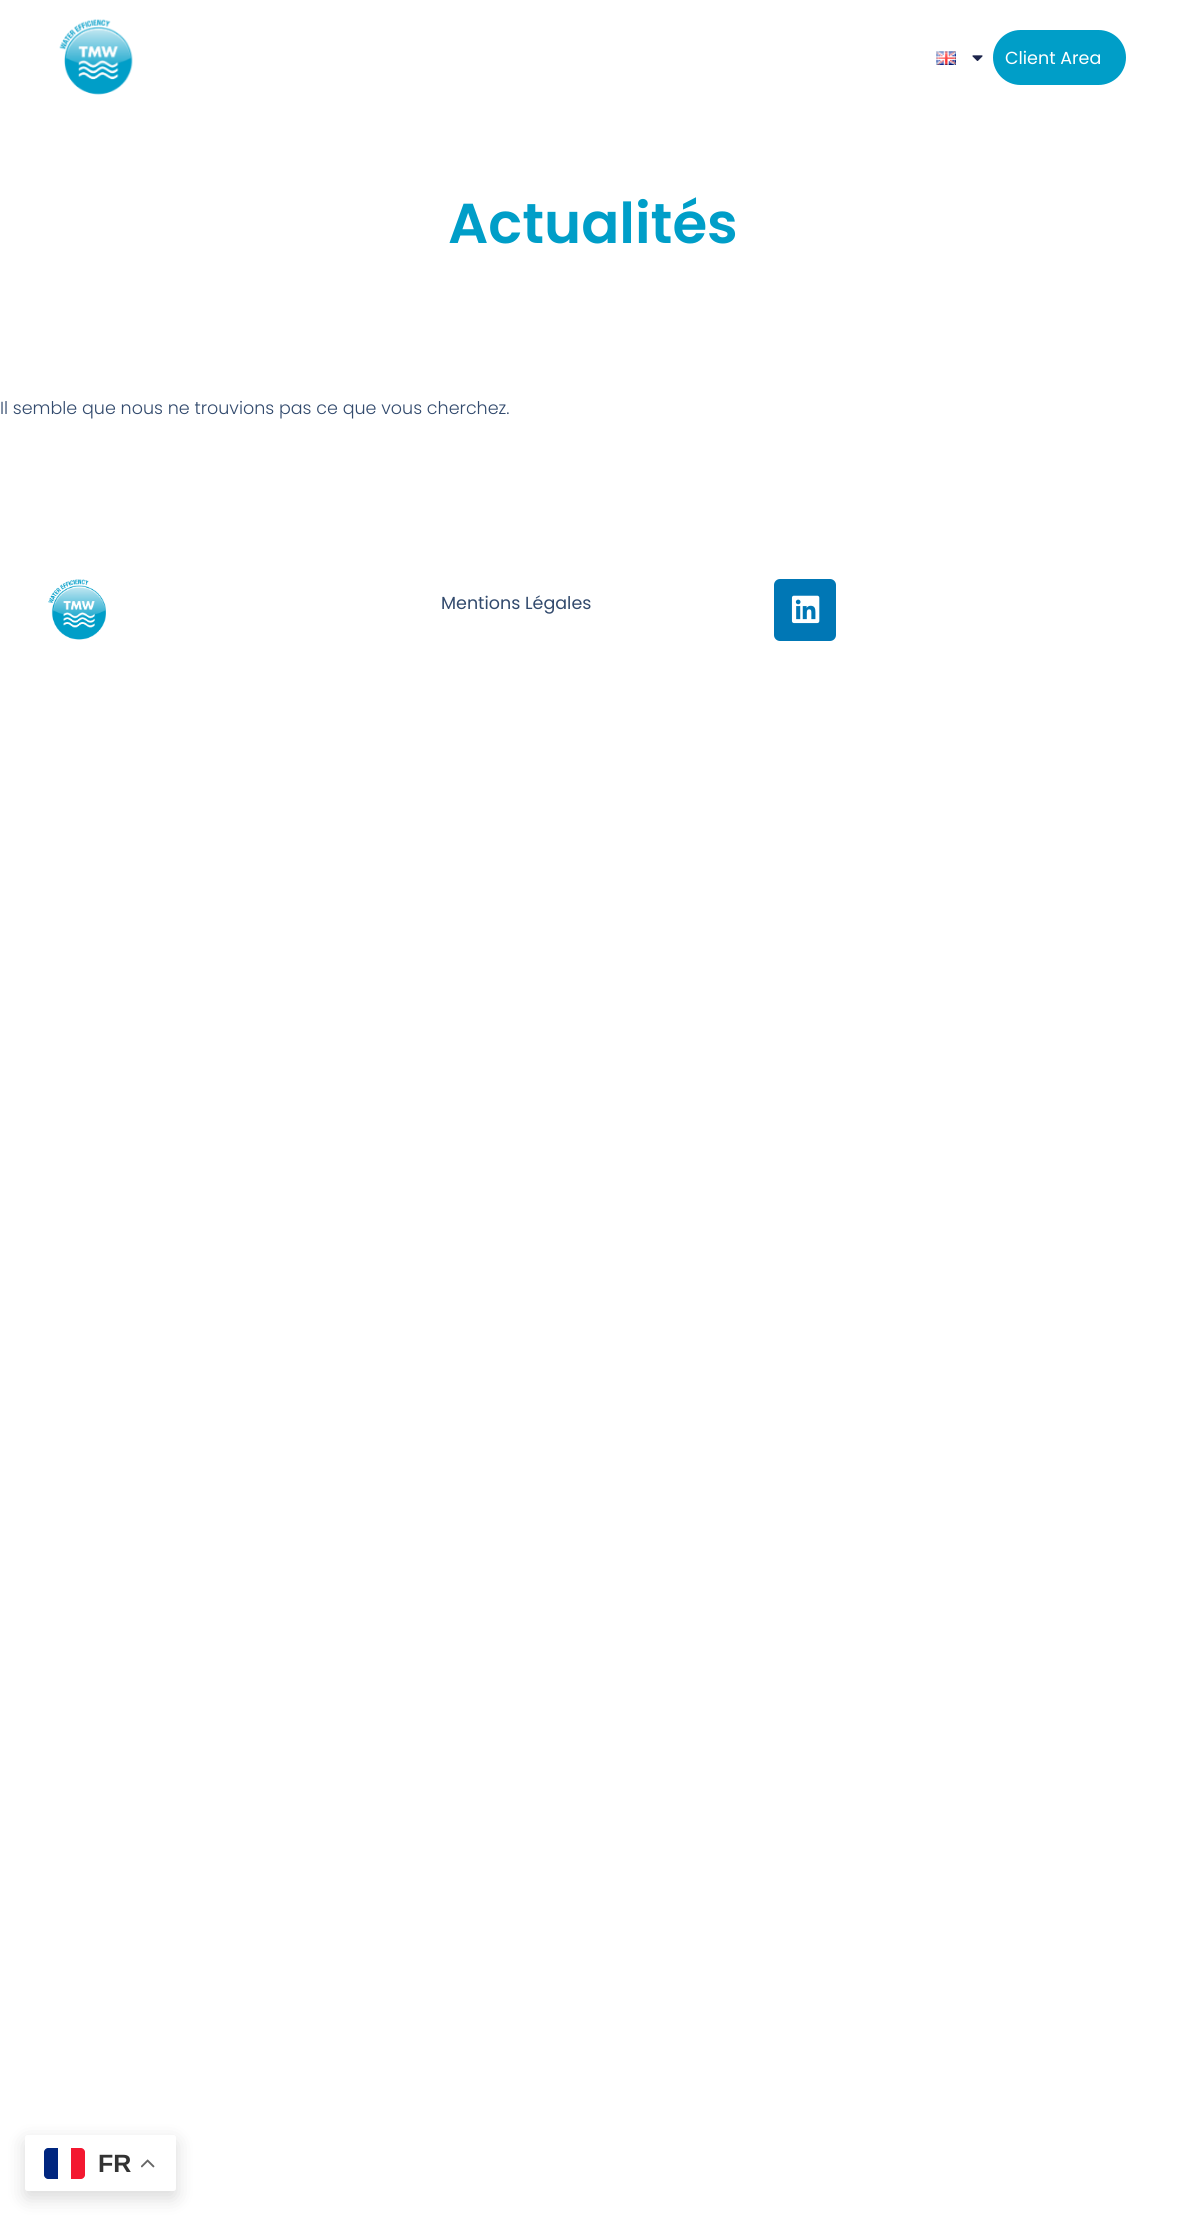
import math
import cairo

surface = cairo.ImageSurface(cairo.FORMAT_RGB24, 1185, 2225)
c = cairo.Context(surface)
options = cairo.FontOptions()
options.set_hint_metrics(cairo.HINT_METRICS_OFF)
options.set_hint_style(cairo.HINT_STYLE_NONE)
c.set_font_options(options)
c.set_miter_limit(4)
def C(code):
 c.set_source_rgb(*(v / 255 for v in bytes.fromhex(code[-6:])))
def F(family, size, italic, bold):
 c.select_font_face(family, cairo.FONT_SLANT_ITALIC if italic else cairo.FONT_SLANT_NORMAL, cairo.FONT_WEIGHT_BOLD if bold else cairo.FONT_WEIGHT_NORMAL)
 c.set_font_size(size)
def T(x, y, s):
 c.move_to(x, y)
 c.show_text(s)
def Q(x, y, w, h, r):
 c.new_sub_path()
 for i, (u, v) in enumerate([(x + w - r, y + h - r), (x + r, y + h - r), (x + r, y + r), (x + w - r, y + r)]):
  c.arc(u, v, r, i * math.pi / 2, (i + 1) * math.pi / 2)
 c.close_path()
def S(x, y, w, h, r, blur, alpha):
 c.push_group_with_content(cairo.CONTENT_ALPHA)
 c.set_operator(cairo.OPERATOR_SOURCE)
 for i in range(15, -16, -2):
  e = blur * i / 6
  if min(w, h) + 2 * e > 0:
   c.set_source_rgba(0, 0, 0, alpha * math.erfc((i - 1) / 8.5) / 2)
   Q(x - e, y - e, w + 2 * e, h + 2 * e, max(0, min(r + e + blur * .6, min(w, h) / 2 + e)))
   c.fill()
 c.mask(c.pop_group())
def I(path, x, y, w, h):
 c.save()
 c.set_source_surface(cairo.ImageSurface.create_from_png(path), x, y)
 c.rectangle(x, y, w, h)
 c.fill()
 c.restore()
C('ffffff')
c.paint()
I('1.png',59,19,74,76)
I('2.png',936,51,20,14)
I('3.png',972,55,11,6)
C('009ec8')
Q(993,30,133,55,27.5)
c.fill()
F('Poppins',17.5,0,0)
C('ffffff')
T(1005,64,'Client Area')
F('Poppins SemiBold',56.25,0,0)
C('009ec8')
T(448,243,'Actualités')
F('Poppins Light',17.5,0,0)
C('324a6d')
T(0,414,'Il semble que nous ne trouvions pas ce que vous cherchez.')
I('4.png',48,579,58,61)
F('Poppins',17.5,0,0)
T(441,609,'Mentions Légales')
C('0077b5')
Q(774,579,62,62,6)
c.fill()
I('5.png',791,595,29,29)
C('000000')
S(25,2141,151,57,2.5,9.5,.15)
C('ffffff')
Q(25,2135,151,56,2.5)
c.fill()
C('00267f')
c.new_path()
c.move_to(48,2148)
c.line_to(58,2148)
c.line_to(58,2179)
c.line_to(48,2179)
c.curve_to(46,2179,44,2177,44,2175)
c.line_to(44,2152)
c.curve_to(44,2150,46,2148,48,2148)
c.close_path()
c.fill()
C('f31830')
c.new_path()
c.move_to(71,2148)
c.line_to(81,2148)
c.curve_to(83,2148,85,2150,85,2152)
c.line_to(85,2175)
c.curve_to(85,2177,83,2179,81,2179)
c.line_to(71,2179)
c.close_path()
c.fill()
F('Liberation Sans',25,0,1)
C('333333')
T(98,2172,'FR')
I('6.png',141,2159,14,9)
surface.write_to_png('o.png')
